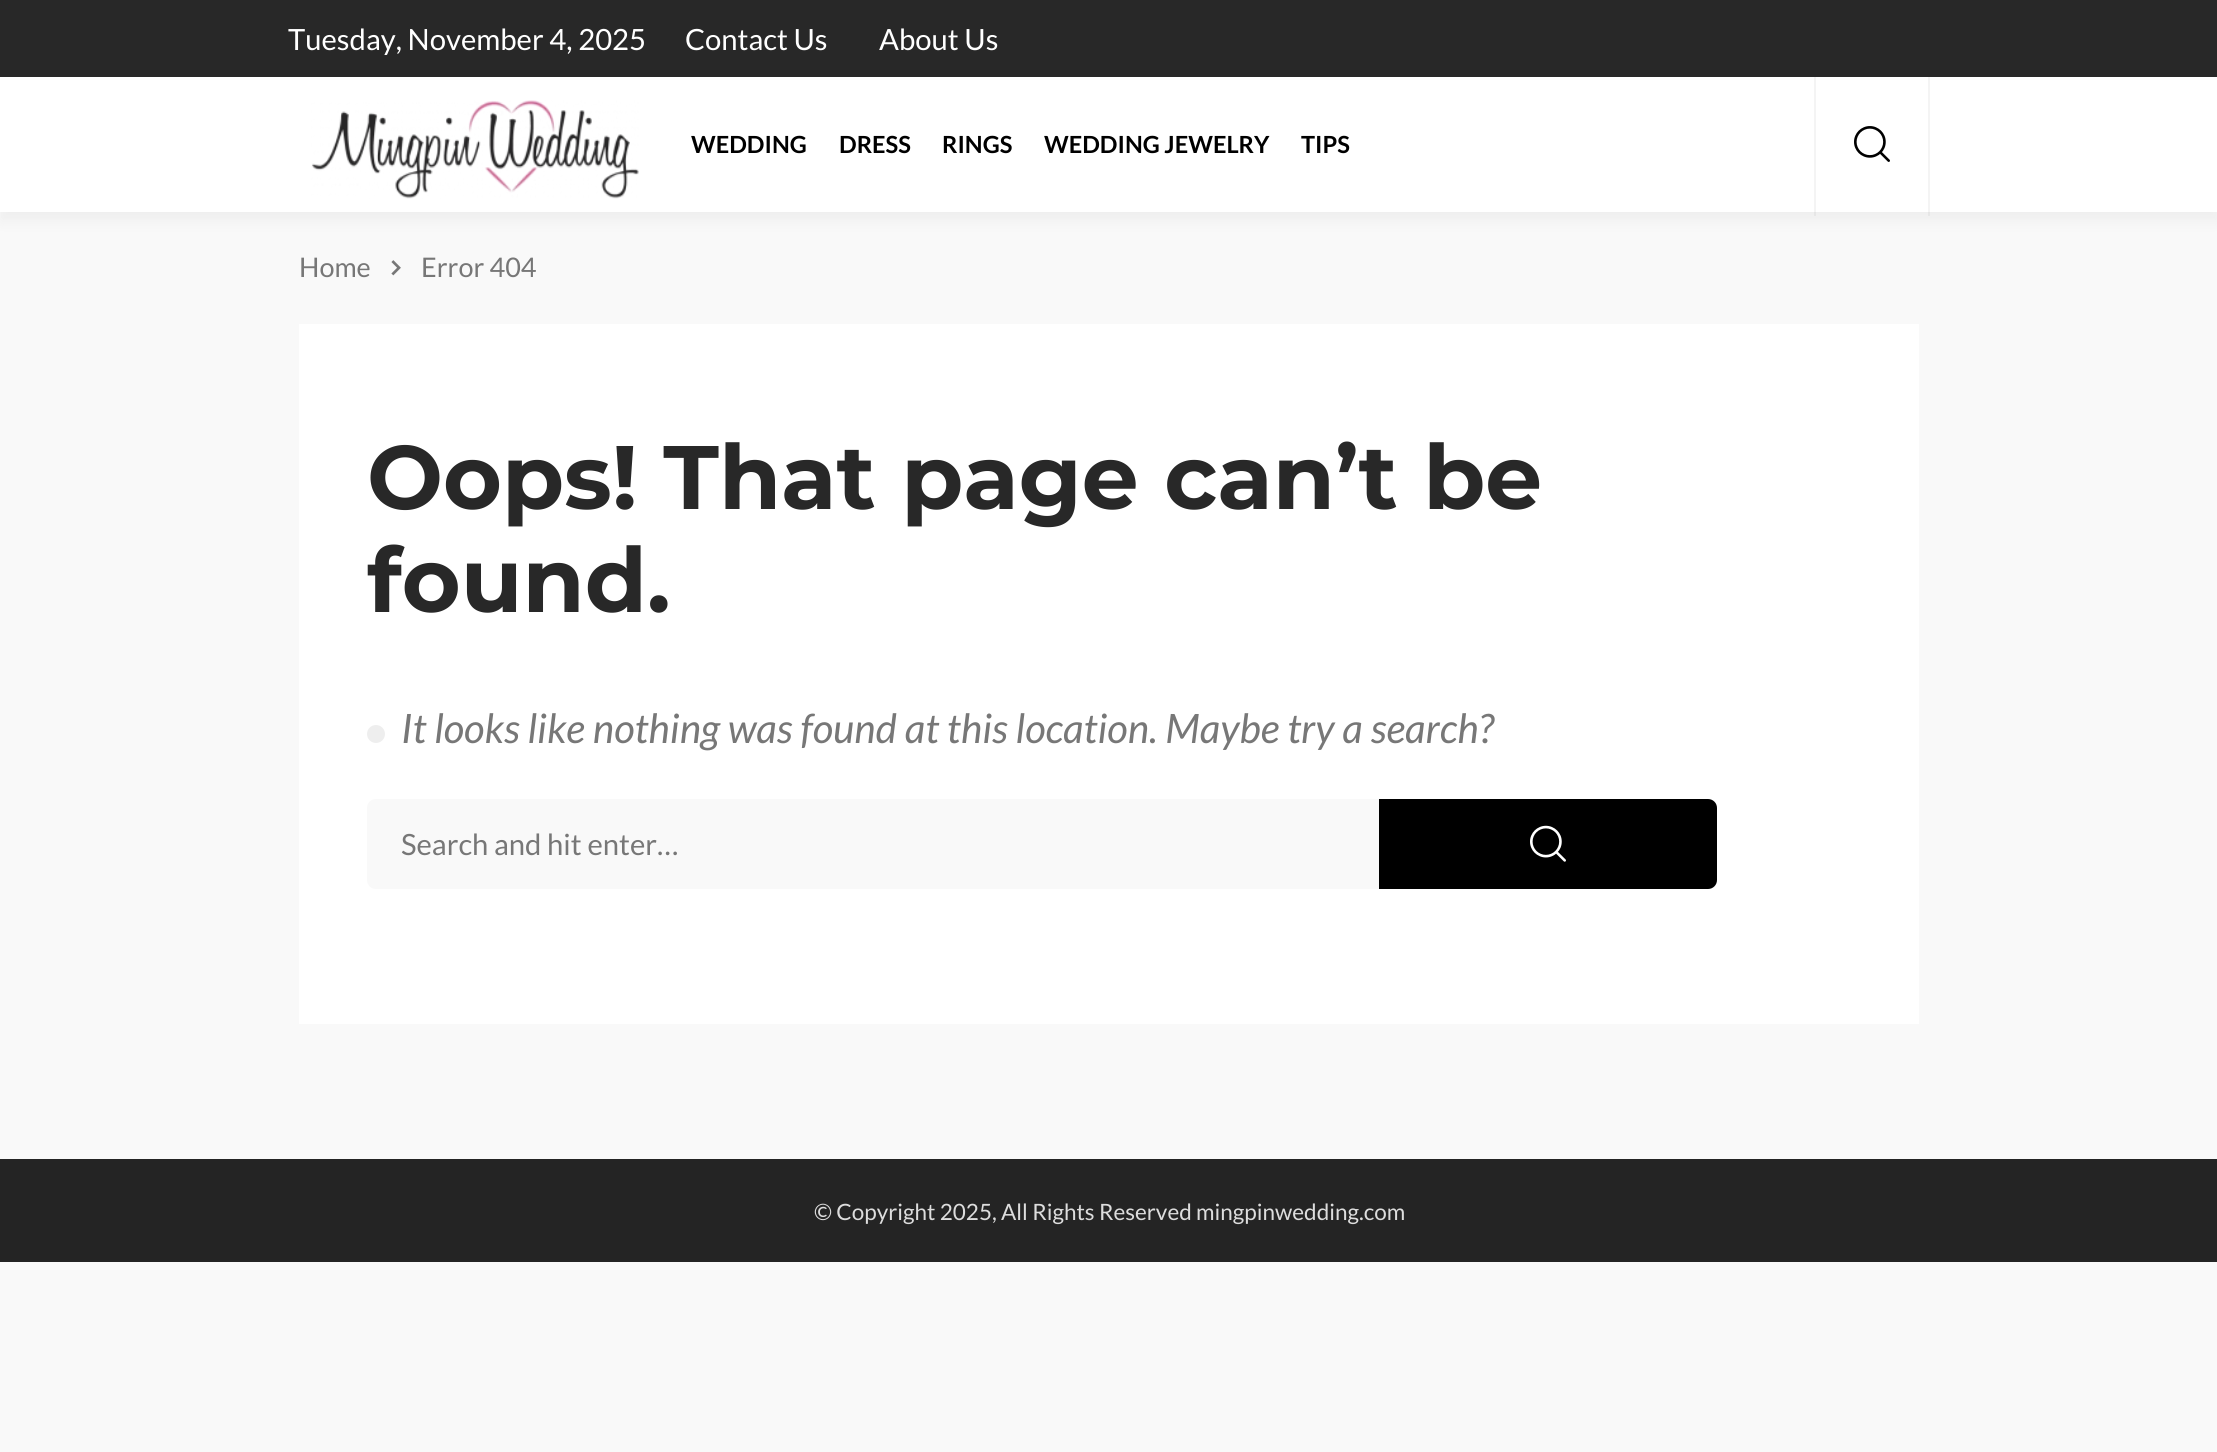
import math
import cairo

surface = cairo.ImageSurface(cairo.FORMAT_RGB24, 2217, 1452)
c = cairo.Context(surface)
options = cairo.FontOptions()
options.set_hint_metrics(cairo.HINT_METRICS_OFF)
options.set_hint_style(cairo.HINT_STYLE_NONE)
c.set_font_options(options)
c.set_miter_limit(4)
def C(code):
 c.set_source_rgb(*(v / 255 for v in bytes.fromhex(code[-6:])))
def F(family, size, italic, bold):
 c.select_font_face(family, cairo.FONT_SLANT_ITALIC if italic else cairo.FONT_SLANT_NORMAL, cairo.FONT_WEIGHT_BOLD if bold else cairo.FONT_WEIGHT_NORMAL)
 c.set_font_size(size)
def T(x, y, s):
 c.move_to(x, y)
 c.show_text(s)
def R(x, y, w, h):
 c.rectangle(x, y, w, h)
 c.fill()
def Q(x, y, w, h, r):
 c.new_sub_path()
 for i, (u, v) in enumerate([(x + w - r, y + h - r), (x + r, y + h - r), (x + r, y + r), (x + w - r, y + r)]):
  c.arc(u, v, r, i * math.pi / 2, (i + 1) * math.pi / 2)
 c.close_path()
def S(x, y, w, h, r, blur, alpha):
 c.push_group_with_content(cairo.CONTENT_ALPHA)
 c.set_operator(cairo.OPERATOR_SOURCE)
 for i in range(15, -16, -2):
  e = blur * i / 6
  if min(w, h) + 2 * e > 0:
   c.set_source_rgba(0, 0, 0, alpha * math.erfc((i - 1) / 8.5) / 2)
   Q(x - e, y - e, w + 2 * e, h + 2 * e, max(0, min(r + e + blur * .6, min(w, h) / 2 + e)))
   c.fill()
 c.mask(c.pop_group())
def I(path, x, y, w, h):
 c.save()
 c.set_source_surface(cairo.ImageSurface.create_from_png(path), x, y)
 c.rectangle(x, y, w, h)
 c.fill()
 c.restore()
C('f9f9f9')
c.paint()
C('1c1c1c')
S(0,86,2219,135,0,7,.05)
C('282828')
R(0,0,2217,77)
F('Lato',29.25,0,0)
C('ffffff')
T(288,50,'Tuesday, November 4, 2025')
T(685,50,'Contact Us')
T(879,50,'About Us')
R(0,77,2217,135)
I('1.png',311,100,328,99)
F('Lato',23.6,0,1)
C('000000')
T(691,153,'WEDDING')
T(839,153,'DRESS')
T(942,153,'RINGS')
T(1044,153,'WEDDING JEWELRY')
T(1301,153,'TIPS')
c.set_source_rgba(0.11,0.11,0.11,0.05)
R(1928,77,2,139)
R(1814,77,2,139)
I('2.png',1854,126,36,36)
F('Lato',27,0,0)
C('777777')
T(299,277,'Home')
I('3.png',391,260,10,16)
T(421,277,'Error 404')
C('ffffff')
R(299,324,1620,700)
F('Montserrat',90,0,1)
C('282828')
T(367,509,'Oops! That page can’t be')
T(367,612,'found.')
C('eeeeee')
c.new_path()
c.arc(376,734,9,0,2 * math.pi)
c.fill()
F('Lato',40.5,1,0)
C('777777')
T(401,743,'It looks like nothing was found at this location. Maybe try a search?')
C('f9f9f9')
c.new_path()
c.move_to(376,799)
c.line_to(1379,799)
c.line_to(1379,889)
c.line_to(376,889)
c.curve_to(371,889,367,885,367,880)
c.line_to(367,808)
c.curve_to(367,803,371,799,376,799)
c.close_path()
c.fill()
F('Lato',29.25,0,0)
C('777777')
T(401,855,'Search and hit enter…')
C('000000')
c.new_path()
c.move_to(1379,799)
c.line_to(1708,799)
c.curve_to(1713,799,1717,803,1717,808)
c.line_to(1717,880)
c.curve_to(1717,885,1713,889,1708,889)
c.line_to(1379,889)
c.close_path()
c.fill()
I('4.png',1530,825,36,37)
C('242424')
R(0,1159,2217,103)
F('Lato',22.5,0,0)
C('dddddd')
T(814,1220,'© Copyright 2025, All Rights Reserved mingpinwedding.com')
surface.write_to_png('o.png')
